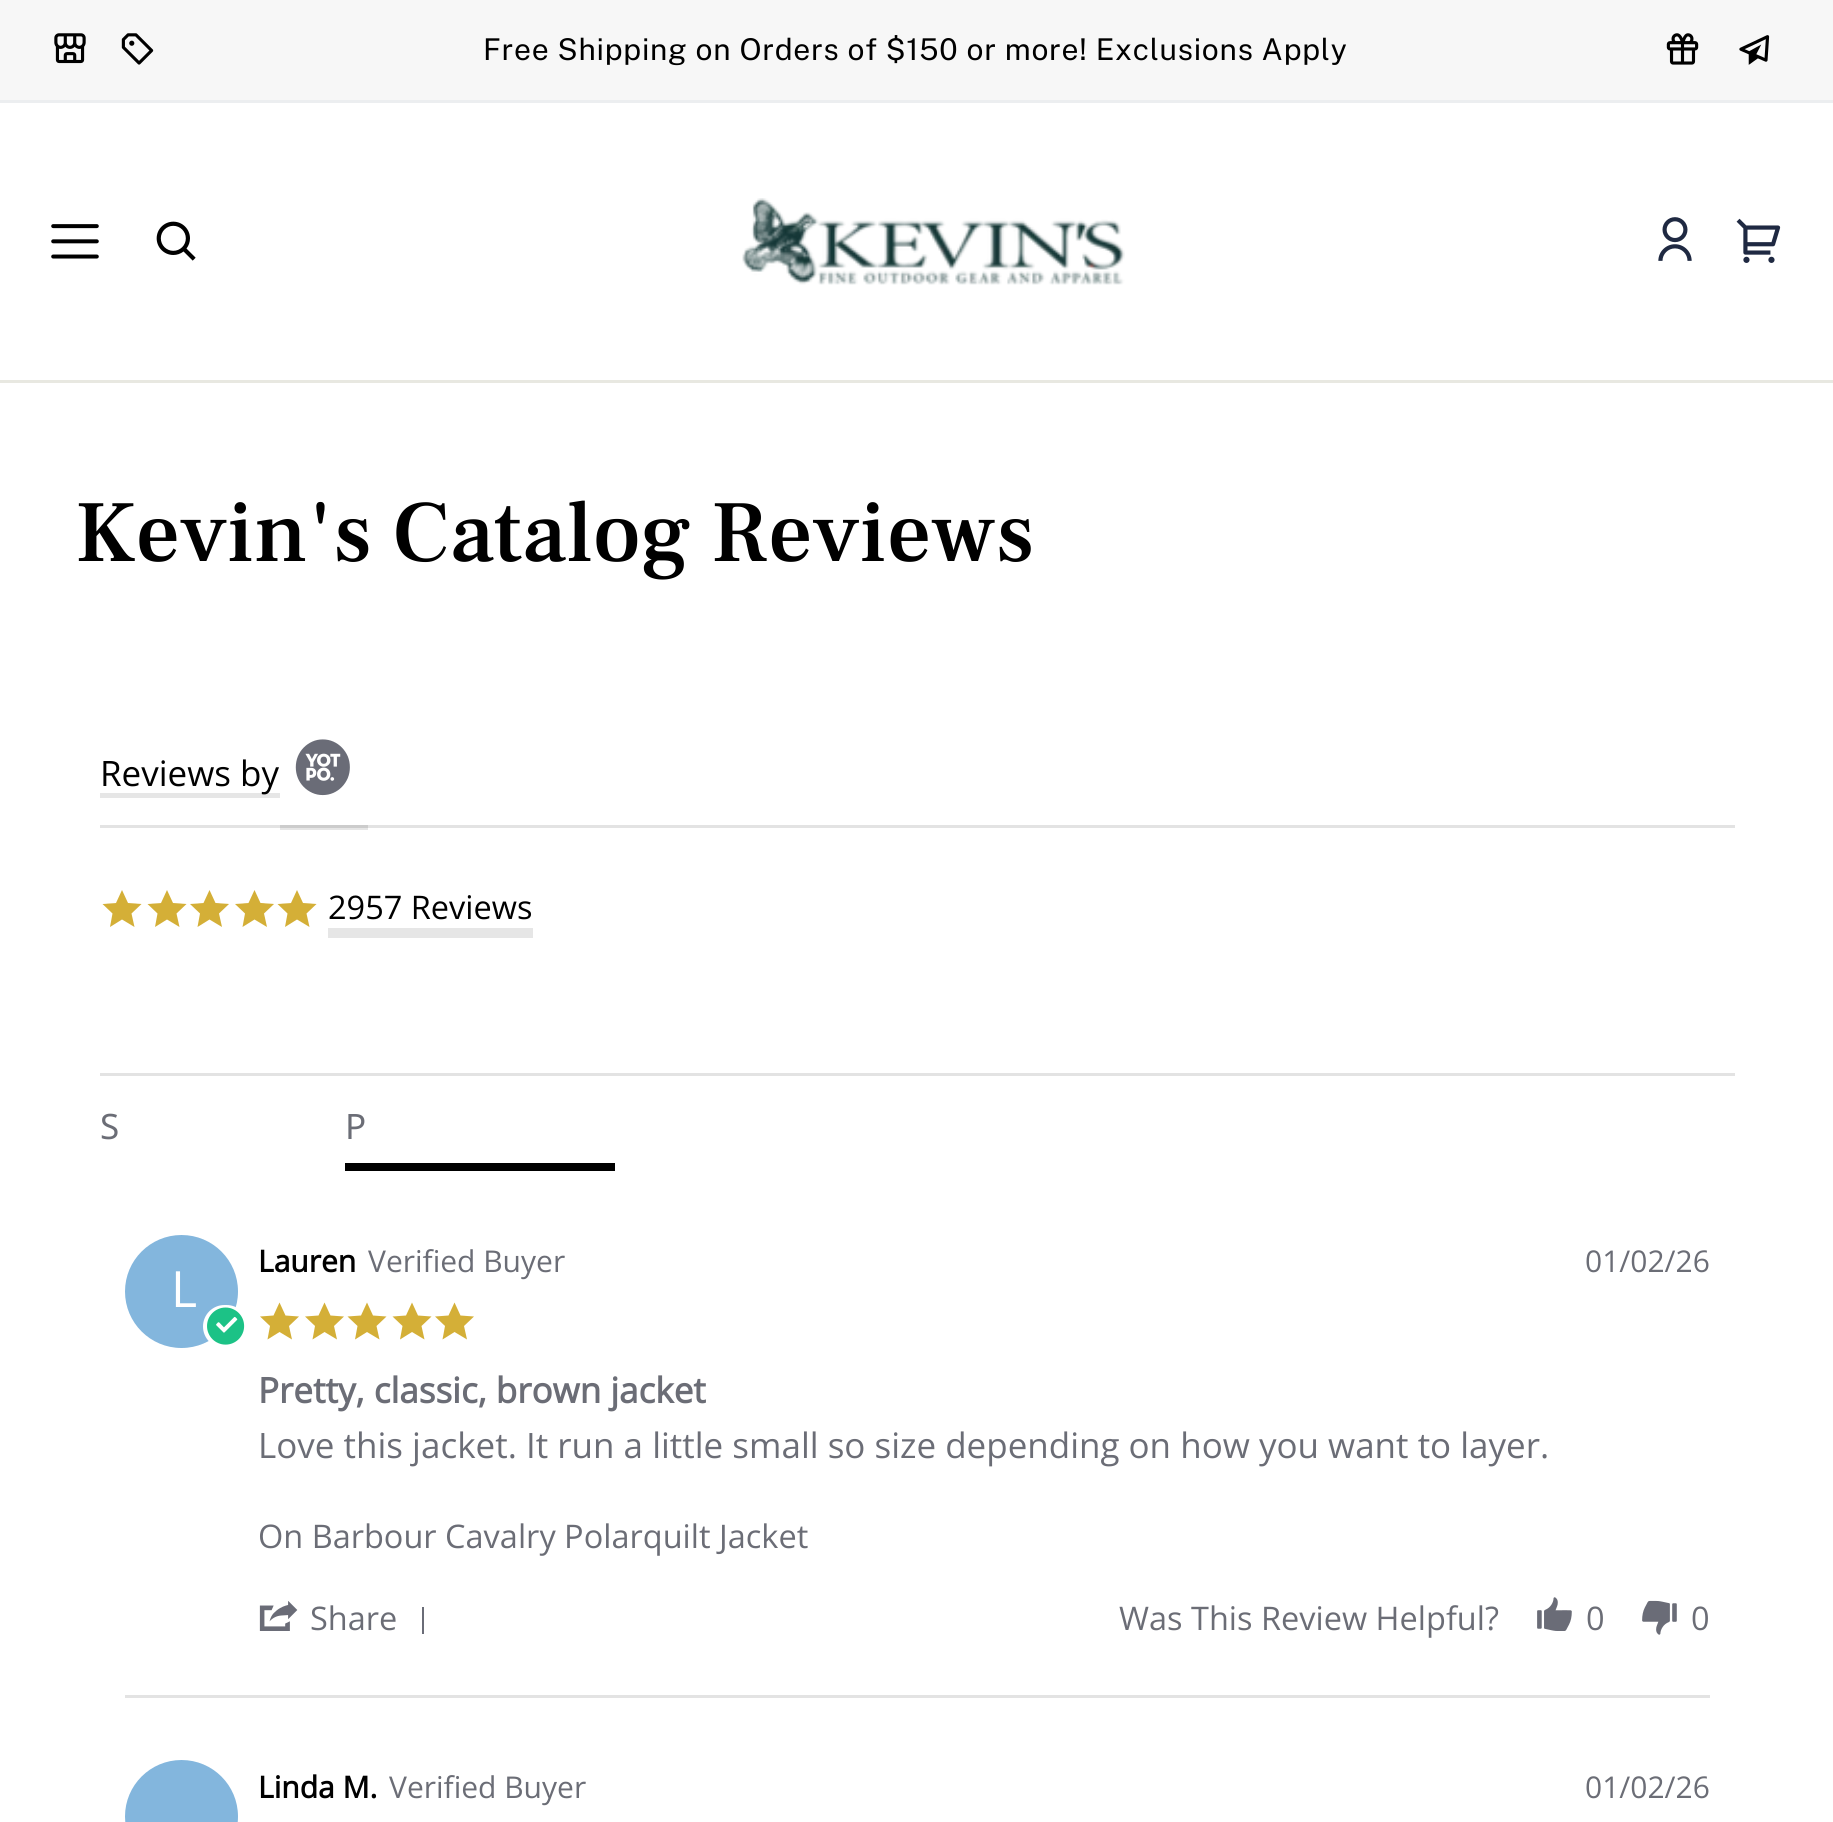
import math
import cairo

surface = cairo.ImageSurface(cairo.FORMAT_RGB24, 1833, 1822)
c = cairo.Context(surface)
options = cairo.FontOptions()
options.set_hint_metrics(cairo.HINT_METRICS_OFF)
options.set_hint_style(cairo.HINT_STYLE_NONE)
c.set_font_options(options)
c.set_miter_limit(4)
def C(code):
 c.set_source_rgb(*(v / 255 for v in bytes.fromhex(code[-6:])))
def F(family, size, italic, bold):
 c.select_font_face(family, cairo.FONT_SLANT_ITALIC if italic else cairo.FONT_SLANT_NORMAL, cairo.FONT_WEIGHT_BOLD if bold else cairo.FONT_WEIGHT_NORMAL)
 c.set_font_size(size)
def T(x, y, s):
 c.move_to(x, y)
 c.show_text(s)
def L(x, y, s, letter, word):
 c.move_to(x, y)
 for ch in s:
  c.show_text(ch)
  c.rel_move_to(letter + word * (ch == ' '), 0)
def R(x, y, w, h):
 c.rectangle(x, y, w, h)
 c.fill()
def Q(x, y, w, h, r):
 c.new_sub_path()
 for i, (u, v) in enumerate([(x + w - r, y + h - r), (x + r, y + h - r), (x + r, y + r), (x + w - r, y + r)]):
  c.arc(u, v, r, i * math.pi / 2, (i + 1) * math.pi / 2)
 c.close_path()
def I(path, x, y, w, h):
 c.save()
 c.set_source_surface(cairo.ImageSurface.create_from_png(path), x, y)
 c.rectangle(x, y, w, h)
 c.fill()
 c.restore()
C('ffffff')
c.paint()
C('e6e6e6')
R(280,828,88,2)
C('f7f7f7')
R(0,0,1833,100)
C('eceef0')
R(0,100,1833,3)
I('1.png',54,33,32,31)
I('2.png',121,33,33,32)
F('Public Sans',30,0,0)
C('000000')
L(483,60,'Free Shipping on Orders of $150 or more! Exclusions Apply',.75,0)
I('3.png',1666,33,33,32)
I('4.png',1739,35,31,30)
C('e8e8e1')
R(0,380,1833,3)
I('5.png',51,224,48,35)
I('6.png',156,221,40,40)
I('7.png',742,198,383,87)
I('8.png',1658,217,34,44)
I('9.png',1736,218,45,45)
F('Frank Ruhl Libre Medium',87.5,0,0)
C('000000')
T(75,561,'Kevin\'s Catalog Reviews')
C('e6e6e6')
R(100,793,180,5)
F('Open Sans',35,0,0)
C('000000')
T(100,786,'Reviews by')
I('10.png',295,739,55,57)
C('e3e3e3')
R(100,825,1635,3)
C('cccccc')
R(280,825,88,3)
C('e3e3e3')
R(100,1073,1635,3)
C('d4af37')
c.new_path()
c.move_to(134.5,927)
c.line_to(122,919.5)
c.line_to(110,927)
c.line_to(112.5,913.5)
c.line_to(102.5,904)
c.line_to(116,903)
c.line_to(122,890)
c.line_to(128,903)
c.line_to(141.5,904)
c.line_to(131.5,913.5)
c.close_path()
c.fill()
c.new_path()
c.move_to(179.5,927)
c.line_to(167,919.5)
c.line_to(155,927)
c.line_to(157.5,913.5)
c.line_to(147.5,904)
c.line_to(161,903)
c.line_to(167,890)
c.line_to(173,903)
c.line_to(186.5,904)
c.line_to(176.5,913.5)
c.close_path()
c.fill()
c.new_path()
c.move_to(222,927)
c.line_to(209.5,919.5)
c.line_to(197.5,927)
c.line_to(200,913.5)
c.line_to(190,904)
c.line_to(203.5,903)
c.line_to(209.5,890)
c.line_to(215.5,903)
c.line_to(229,904)
c.line_to(219,913.5)
c.close_path()
c.fill()
c.new_path()
c.move_to(267,927)
c.line_to(254.5,919.5)
c.line_to(242.5,927)
c.line_to(245,913.5)
c.line_to(235,904)
c.line_to(248.5,903)
c.line_to(254.5,890)
c.line_to(260.5,903)
c.line_to(274,904)
c.line_to(264,913.5)
c.close_path()
c.fill()
c.new_path()
c.move_to(309.5,927)
c.line_to(297,919.5)
c.line_to(285,927)
c.line_to(287.5,913.5)
c.line_to(277.5,904)
c.line_to(291,903)
c.line_to(297,890)
c.line_to(303,903)
c.line_to(316.5,904)
c.line_to(306.5,913.5)
c.close_path()
c.fill()
F('Open Sans',32.5,0,0)
C('000000')
T(328,919,'2957 Reviews')
C('e6e6e6')
R(328,928,205,10)
F('Noto Sans',35,0,0)
C('6b6d76')
T(100,1139,'S')
C('000000')
R(345,1163,270,8)
C('6b6d76')
T(345,1139,'P')
F('Open Sans',30,0,1)
C('000000')
T(258,1272,'Lauren')
F('Open Sans',30,0,0)
C('6b6d76')
T(368,1272,'Verified Buyer')
C('d4af37')
c.new_path()
c.move_to(292,1339.5)
c.line_to(279.5,1332)
c.line_to(267.5,1339.5)
c.line_to(270,1326)
c.line_to(260,1316.5)
c.line_to(273.5,1315.5)
c.line_to(279.5,1302.5)
c.line_to(285.5,1315.5)
c.line_to(299,1316.5)
c.line_to(289,1326)
c.close_path()
c.fill()
c.new_path()
c.move_to(337,1339.5)
c.line_to(324.5,1332)
c.line_to(312.5,1339.5)
c.line_to(315,1326)
c.line_to(305,1316.5)
c.line_to(318.5,1315.5)
c.line_to(324.5,1302.5)
c.line_to(330.5,1315.5)
c.line_to(344,1316.5)
c.line_to(334,1326)
c.close_path()
c.fill()
c.new_path()
c.move_to(379.5,1339.5)
c.line_to(367,1332)
c.line_to(355,1339.5)
c.line_to(357.5,1326)
c.line_to(347.5,1316.5)
c.line_to(361,1315.5)
c.line_to(367,1302.5)
c.line_to(373,1315.5)
c.line_to(386.5,1316.5)
c.line_to(376.5,1326)
c.close_path()
c.fill()
c.new_path()
c.move_to(424.5,1339.5)
c.line_to(412,1332)
c.line_to(400,1339.5)
c.line_to(402.5,1326)
c.line_to(392.5,1316.5)
c.line_to(406,1315.5)
c.line_to(412,1302.5)
c.line_to(418,1315.5)
c.line_to(431.5,1316.5)
c.line_to(421.5,1326)
c.close_path()
c.fill()
c.new_path()
c.move_to(467,1339.5)
c.line_to(454.5,1332)
c.line_to(442.5,1339.5)
c.line_to(445,1326)
c.line_to(435,1316.5)
c.line_to(448.5,1315.5)
c.line_to(454.5,1302.5)
c.line_to(460.5,1315.5)
c.line_to(474,1316.5)
c.line_to(464,1326)
c.close_path()
c.fill()
C('6b6d76')
T(1585,1272,'01/02/26')
C('83b6dd')
c.new_path()
c.arc(181.5,1291.5,56.5,0,2 * math.pi)
c.fill()
F('Open Sans',50,0,0)
C('ffffff')
T(171,1307,'L')
Q(203,1305,45,43,21.5)
c.fill()
I('11.png',207,1307,38,38)
F('Open Sans',35,0,1)
C('6b6d76')
T(258,1403,'Pretty, classic, brown jacket')
F('Open Sans',35,0,0)
T(258,1458,'Love this jacket. It run a little small so size depending on how you want to layer.')
F('Open Sans',32.5,0,0)
T(258,1548,'On Barbour Cavalry Polarquilt Jacket')
I('12.png',259,1601,39,30)
T(310,1630,'Share')
C('6a6c77')
R(422,1607,2,27)
C('6b6d76')
T(1119,1630,'Was This Review Helpful?')
I('13.png',1537,1597,35,34)
T(1586,1630,'0')
I('14.png',1642,1600,35,35)
T(1691,1630,'0')
C('e3e3e3')
R(125,1695,1585,3)
C('83b6dd')
c.new_path()
c.arc(181.5,1816.5,56.5,0,2 * math.pi)
c.fill()
F('Open Sans',30,0,1)
C('000000')
T(258,1798,'Linda M.')
F('Open Sans',30,0,0)
C('6b6d76')
T(389,1798,'Verified Buyer')
T(1585,1798,'01/02/26')
surface.write_to_png('o.png')
